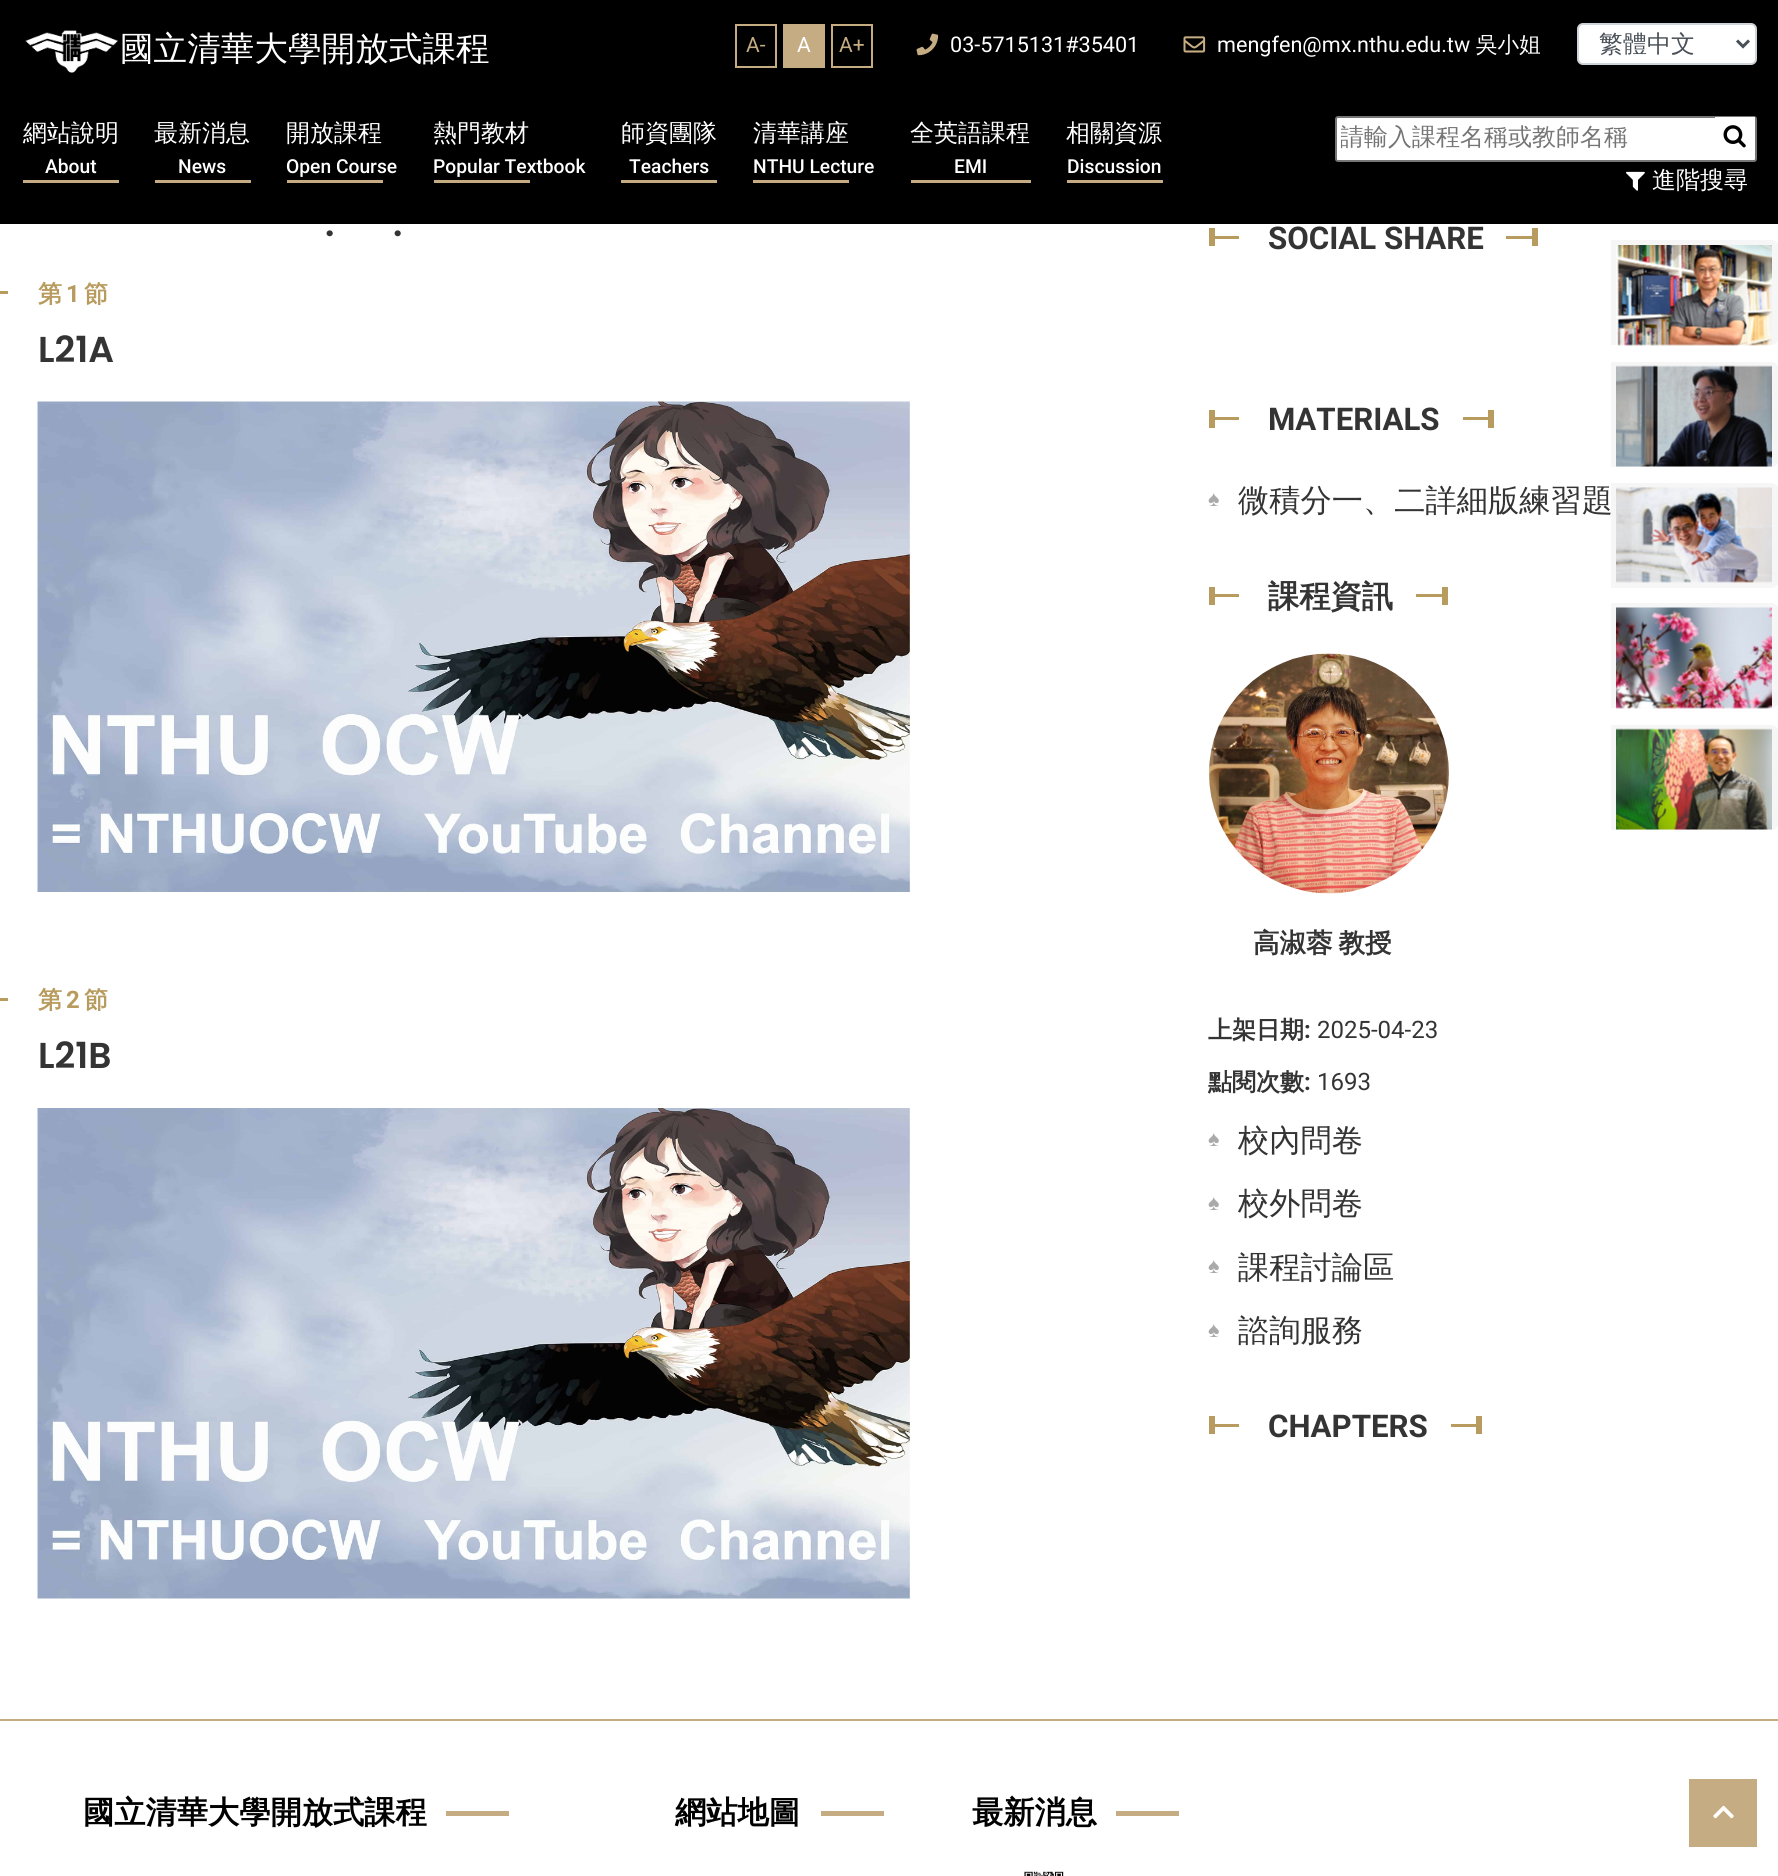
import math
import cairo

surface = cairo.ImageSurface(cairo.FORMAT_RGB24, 1778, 1876)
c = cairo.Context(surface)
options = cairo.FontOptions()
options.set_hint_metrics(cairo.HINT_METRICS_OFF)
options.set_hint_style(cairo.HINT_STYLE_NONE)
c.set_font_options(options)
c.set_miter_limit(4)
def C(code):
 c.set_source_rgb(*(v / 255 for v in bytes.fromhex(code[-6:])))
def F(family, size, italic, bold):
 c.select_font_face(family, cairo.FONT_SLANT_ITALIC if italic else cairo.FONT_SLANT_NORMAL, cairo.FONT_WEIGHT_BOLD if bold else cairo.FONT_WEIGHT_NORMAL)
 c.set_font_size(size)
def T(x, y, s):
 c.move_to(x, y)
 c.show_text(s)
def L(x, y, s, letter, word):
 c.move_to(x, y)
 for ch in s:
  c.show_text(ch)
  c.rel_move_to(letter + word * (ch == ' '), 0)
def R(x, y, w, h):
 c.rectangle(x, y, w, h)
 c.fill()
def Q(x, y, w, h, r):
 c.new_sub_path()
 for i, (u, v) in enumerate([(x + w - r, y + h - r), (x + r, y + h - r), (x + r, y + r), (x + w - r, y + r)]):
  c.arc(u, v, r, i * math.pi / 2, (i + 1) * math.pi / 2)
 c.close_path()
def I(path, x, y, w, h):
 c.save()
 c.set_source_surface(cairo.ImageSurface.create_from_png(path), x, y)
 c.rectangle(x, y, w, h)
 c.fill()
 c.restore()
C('ffffff')
c.paint()
C('000000')
R(0,0,1778,224)
I('1.png',25,30,93,43)
F('WenQuanYi Zen Hei Medium',33.6,0,0)
C('ffffff')
T(120,60,'國立清華大學開放式課程')
c.rectangle(736,25,40,42)
C('c6ac82')
c.stroke()
F('Roboto',21,0,0)
T(746,52,'A-')
R(783,24,42,44)
C('ffffff')
T(797,52,'A')
c.rectangle(832,25,40,42)
C('c6ac82')
c.stroke()
T(839,52,'A+')
I('2.png',916,33,23,23)
F('Roboto',21.6,0,0)
C('ffffff')
T(950,52,'03-5715131#35401')
I('3.png',1183,36,23,17)
T(1217,52,'mengfen@mx.nthu.edu.tw')
F('WenQuanYi Zen Hei Medium',21.6,0,0)
T(1476,52,'吳小姐')
Q(1578,24,178,40,5)
c.fill_preserve()
C('ced4da')
c.stroke()
c.new_path()
c.move_to(1737,40.5)
c.line_to(1743,46.5)
c.line_to(1749,40.5)
C('495057')
c.set_line_width(3)
c.stroke()
F('WenQuanYi Zen Hei Medium',24,0,0)
T(1599,52,'繁體中文')
C('c6ac82')
R(23,180,96,3)
C('ffffff')
T(23,141,'網站說明')
F('Roboto Medium',19.25,0,0)
T(45,173,'About')
C('c6ac82')
R(155,180,96,3)
F('WenQuanYi Zen Hei Medium',24,0,0)
C('ffffff')
T(154,141,'最新消息')
F('Roboto Medium',19.25,0,0)
T(178,173,'News')
C('c6ac82')
R(287,180,96,3)
F('WenQuanYi Zen Hei Medium',24,0,0)
C('ffffff')
T(286,141,'開放課程')
F('Roboto Medium',19.25,0,0)
T(286,173,'Open Course')
C('c6ac82')
R(434,180,96,3)
F('WenQuanYi Zen Hei Medium',24,0,0)
C('ffffff')
T(433,141,'熱門教材')
F('Roboto Medium',19.25,0,0)
T(433,173,'Popular Textbook')
C('c6ac82')
R(621,180,96,3)
F('WenQuanYi Zen Hei Medium',24,0,0)
C('ffffff')
T(621,141,'師資團隊')
F('Roboto Medium',19.25,0,0)
T(629,173,'Teachers')
C('c6ac82')
R(753,180,96,3)
F('WenQuanYi Zen Hei Medium',24,0,0)
C('ffffff')
T(753,141,'清華講座')
F('Roboto Medium',19.25,0,0)
T(753,173,'NTHU Lecture')
C('c6ac82')
R(911,180,120,3)
F('WenQuanYi Zen Hei Medium',24,0,0)
C('ffffff')
T(910,141,'全英語課程')
F('Roboto Medium',19.25,0,0)
T(954,173,'EMI')
C('c6ac82')
R(1067,180,96,3)
F('WenQuanYi Zen Hei Medium',24,0,0)
C('ffffff')
T(1066,141,'相關資源')
F('Roboto Medium',19.25,0,0)
T(1067,173,'Discussion')
Q(1336,117,420,44,2)
c.fill_preserve()
C('767676')
c.set_line_width(2)
c.stroke()
c.save()
c.rectangle(1341,123,368,32)
c.clip()
F('WenQuanYi Zen Hei Medium',24,0,0)
C('757575')
T(1340,145,'請輸入課程名稱或教師名稱')
c.restore()
C('ffffff')
R(1715,117,40,2)
I('4.png',1723,125,23,23)
I('5.png',1626,171,19,20)
F('WenQuanYi Zen Hei Medium',24,0,0)
T(1652,188,'進階搜尋')
F('Poppins SemiBold',36,0,0)
C('343434')
T(325,236,'.')
T(393,236,'.')
C('b89b5e')
R(0,291,8,3)
F('WenQuanYi Zen Hei',24,0,1)
L(38,302,'第',4,0)
F('Roboto',24,0,1)
L(66,302,'1',4,0)
F('WenQuanYi Zen Hei',24,0,1)
L(84,302,'節',4,0)
F('Poppins SemiBold',36,0,0)
C('343434')
T(38,362,'L21A')
I('6.png',37,401,874,491)
C('b89b5e')
R(0,998,8,3)
F('WenQuanYi Zen Hei',24,0,1)
L(38,1008,'第',4,0)
F('Roboto',24,0,1)
L(66,1008,'2',4,0)
F('WenQuanYi Zen Hei',24,0,1)
L(84,1008,'節',4,0)
F('Poppins SemiBold',36,0,0)
C('343434')
T(38,1068,'L21B')
I('7.png',37,1108,874,491)
C('b89b5e')
R(1209,236,30,3)
R(1209,228,6,18)
F('Roboto',31.25,0,1)
C('343434')
T(1268,249,'SOCIAL SHARE')
C('b89b5e')
R(1506,236,30,3)
R(1532,228,6,18)
R(1209,417,30,3)
R(1209,410,6,18)
C('343434')
T(1268,430,'MATERIALS')
C('b89b5e')
R(1463,417,30,3)
R(1488,410,6,18)
F('Liberation Serif',21.6,0,1)
C('aaaaaa')
T(1208,506,'♠')
F('WenQuanYi Zen Hei Medium',31.25,0,0)
C('343434')
T(1238,511,'微積分一、二詳細版練習題')
C('b89b5e')
R(1209,594,30,3)
R(1209,587,6,18)
F('WenQuanYi Zen Hei',31.25,0,1)
C('343434')
T(1268,607,'課程資訊')
C('b89b5e')
R(1416,594,30,3)
R(1442,587,6,18)
I('8.png',1209,653,240,241)
F('WenQuanYi Zen Hei',26.5,0,1)
C('343434')
L(1253,952,'高淑蓉 教授',0,-2)
F('WenQuanYi Zen Hei',24,0,1)
T(1208,1038,'上架日期')
F('Roboto',24,0,1)
T(1304,1038,':')
F('Roboto',24,0,0)
T(1317,1038,'2025-04-23')
F('WenQuanYi Zen Hei',24,0,1)
T(1208,1090,'點閱次數')
F('Roboto',24,0,1)
T(1304,1090,':')
F('Roboto',24,0,0)
T(1317,1090,'1693')
F('Liberation Serif',21.6,0,1)
C('aaaaaa')
T(1208,1146,'♠')
F('WenQuanYi Zen Hei Medium',31.25,0,0)
C('343434')
T(1238,1151,'校內問卷')
F('Liberation Serif',21.6,0,1)
C('aaaaaa')
T(1208,1210,'♠')
F('WenQuanYi Zen Hei Medium',31.25,0,0)
C('343434')
T(1238,1214,'校外問卷')
F('Liberation Serif',21.6,0,1)
C('aaaaaa')
T(1208,1273,'♠')
F('WenQuanYi Zen Hei Medium',31.25,0,0)
C('343434')
T(1238,1278,'課程討論區')
F('Liberation Serif',21.6,0,1)
C('aaaaaa')
T(1208,1337,'♠')
F('WenQuanYi Zen Hei Medium',31.25,0,0)
C('343434')
T(1238,1341,'諮詢服務')
C('b89b5e')
R(1209,1424,30,3)
R(1209,1416,6,18)
F('Roboto',31.25,0,1)
C('343434')
T(1268,1437,'CHAPTERS')
C('b89b5e')
R(1451,1424,30,3)
R(1476,1416,6,18)
C('f6f6f6')
c.new_path()
c.move_to(1611,240)
c.line_to(1771,240)
c.curve_to(1775.5,240,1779,243.5,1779,248)
c.line_to(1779,337)
c.curve_to(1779,341.5,1775.5,345,1771,345)
c.line_to(1611,345)
c.close_path()
c.fill()
I('9.png',1616,245,156,101)
c.new_path()
c.move_to(1611,362)
c.line_to(1771,362)
c.curve_to(1775.5,362,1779,365.5,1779,370)
c.line_to(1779,459)
c.curve_to(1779,463.5,1775.5,467,1771,467)
c.line_to(1611,467)
c.close_path()
c.fill()
I('10.png',1616,365,156,102)
c.new_path()
c.move_to(1611,483)
c.line_to(1771,483)
c.curve_to(1775.5,483,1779,486.5,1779,491)
c.line_to(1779,580)
c.curve_to(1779,584.5,1775.5,588,1771,588)
c.line_to(1611,588)
c.close_path()
c.fill()
I('11.png',1616,487,156,96)
c.new_path()
c.move_to(1611,603)
c.line_to(1771,603)
c.curve_to(1775.5,603,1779,606.5,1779,611)
c.line_to(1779,700)
c.curve_to(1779,704.5,1775.5,708,1771,708)
c.line_to(1611,708)
c.close_path()
c.fill()
I('12.png',1616,607,156,102)
c.new_path()
c.move_to(1611,725)
c.line_to(1771,725)
c.curve_to(1775.5,725,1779,728.5,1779,733)
c.line_to(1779,822)
c.curve_to(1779,826.5,1775.5,830,1771,830)
c.line_to(1611,830)
c.close_path()
c.fill()
I('13.png',1616,728,156,102)
C('c6ac82')
R(0,1719,1778,2)
F('WenQuanYi Zen Hei',31.25,0,1)
C('000000')
T(83,1823,'國立清華大學開放式課程')
C('c6ac82')
R(446,1811,63,5)
C('000000')
T(675,1823,'網站地圖')
C('c6ac82')
R(821,1811,63,5)
C('000000')
T(972,1823,'最新消息')
C('c6ac82')
R(1116,1811,63,5)
I('14.png',1024,1871,40,5)
R(1689,1779,68,68)
I('15.png',1713,1805,21,14)
surface.write_to_png('o.png')
